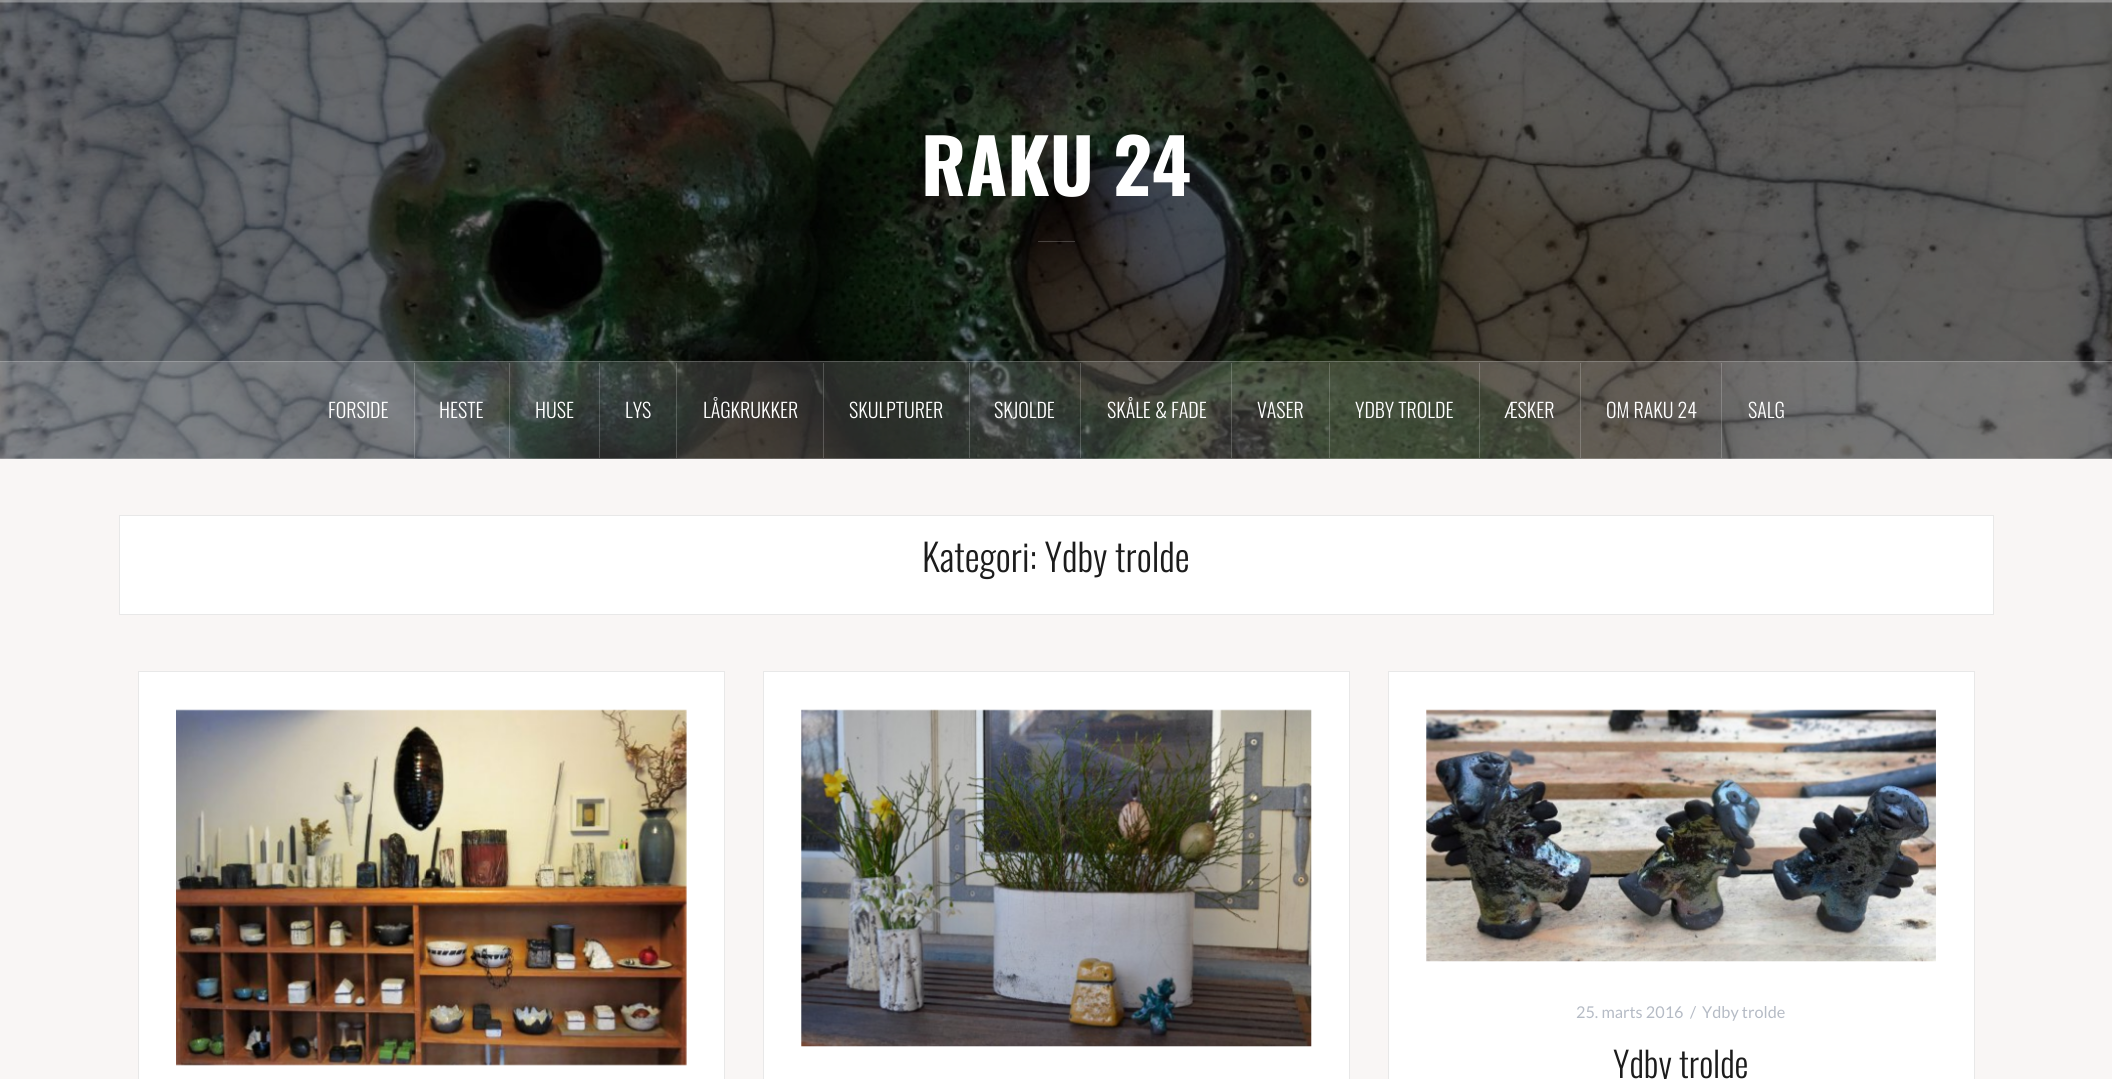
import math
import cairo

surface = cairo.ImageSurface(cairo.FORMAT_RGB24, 2112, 1079)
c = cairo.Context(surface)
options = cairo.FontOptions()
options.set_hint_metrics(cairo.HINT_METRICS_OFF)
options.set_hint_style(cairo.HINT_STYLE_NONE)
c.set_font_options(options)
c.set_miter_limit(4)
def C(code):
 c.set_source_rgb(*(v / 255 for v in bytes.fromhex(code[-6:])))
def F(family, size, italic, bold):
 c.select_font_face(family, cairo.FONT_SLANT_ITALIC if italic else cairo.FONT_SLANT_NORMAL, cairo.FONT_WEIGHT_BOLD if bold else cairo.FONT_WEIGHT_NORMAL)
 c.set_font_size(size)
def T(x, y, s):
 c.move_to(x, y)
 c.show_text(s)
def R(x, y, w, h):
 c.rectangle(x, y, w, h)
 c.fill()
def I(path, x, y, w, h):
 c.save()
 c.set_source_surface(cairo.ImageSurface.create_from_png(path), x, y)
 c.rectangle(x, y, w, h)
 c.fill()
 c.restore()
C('f9f6f5')
c.paint()
I('1.png',0,0,2112,459)
c.set_source_rgba(1,1,1,0.15)
R(0,0,2112,3)
c.set_source_rgba(1,1,1,0.2)
R(0,0,2112,1)
R(0,1,2112,1)
F('Oswald',75,0,1)
C('ffffff')
T(921,196,'RAKU 24')
c.set_source_rgba(1,1,1,0.2)
R(1038,241,37,1)
c.set_source_rgba(1,1,1,0.15)
R(0,361,2112,98)
c.set_source_rgba(1,1,1,0.2)
R(0,361,2112,1)
R(0,458,2112,1)
R(414,363,1,95)
F('Oswald Light',20,0,0)
C('ffffff')
T(328,418,'FORSIDE')
c.set_source_rgba(1,1,1,0.2)
R(509,363,1,95)
C('ffffff')
T(439,418,'HESTE')
c.set_source_rgba(1,1,1,0.2)
R(599,363,1,95)
C('ffffff')
T(535,418,'HUSE')
c.set_source_rgba(1,1,1,0.2)
R(676,363,1,95)
C('ffffff')
T(625,418,'LYS')
c.set_source_rgba(1,1,1,0.2)
R(823,363,1,95)
C('ffffff')
T(703,418,'LÅGKRUKKER')
c.set_source_rgba(1,1,1,0.2)
R(969,363,1,95)
C('ffffff')
T(849,418,'SKULPTURER')
c.set_source_rgba(1,1,1,0.2)
R(1080,363,1,95)
C('ffffff')
T(994,418,'SKJOLDE')
c.set_source_rgba(1,1,1,0.2)
R(1231,363,1,95)
C('ffffff')
T(1107,418,'SKÅLE & FADE')
c.set_source_rgba(1,1,1,0.2)
R(1329,363,1,95)
C('ffffff')
T(1257,418,'VASER')
c.set_source_rgba(1,1,1,0.2)
R(1479,363,1,95)
C('ffffff')
T(1355,418,'YDBY TROLDE')
c.set_source_rgba(1,1,1,0.2)
R(1580,363,1,95)
C('ffffff')
T(1505,418,'ÆSKER')
c.set_source_rgba(1,1,1,0.2)
R(1721,363,1,95)
C('ffffff')
T(1606,418,'OM RAKU 24')
T(1748,418,'SALG')
c.rectangle(119.5,515.5,1874,99)
c.fill_preserve()
C('e8e8e8')
c.set_line_width(1)
c.stroke()
F('Oswald Light',37.5,0,0)
C('1c1c1c')
T(922,572,'Kategori: Ydby trolde')
C('ffffff')
c.rectangle(138.5,671.5,586,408)
c.fill_preserve()
C('e8e8e8')
c.stroke()
I('2.png',176,709,511,357)
C('ffffff')
c.rectangle(763.5,671.5,586,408)
c.fill_preserve()
C('e8e8e8')
c.stroke()
I('3.png',801,709,511,338)
C('ffffff')
c.rectangle(1388.5,671.5,586,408)
c.fill_preserve()
C('e8e8e8')
c.stroke()
I('4.png',1426,709,510,253)
F('Lato',16.25,0,0)
C('b5bbc5')
T(1576,1018,'25. marts 2016')
T(1690,1018,'/')
T(1702,1018,'Ydby trolde')
F('Oswald Light',35,0,0)
C('1c1c1c')
T(1613,1078,'Ydby trolde')
surface.write_to_png('o.png')
